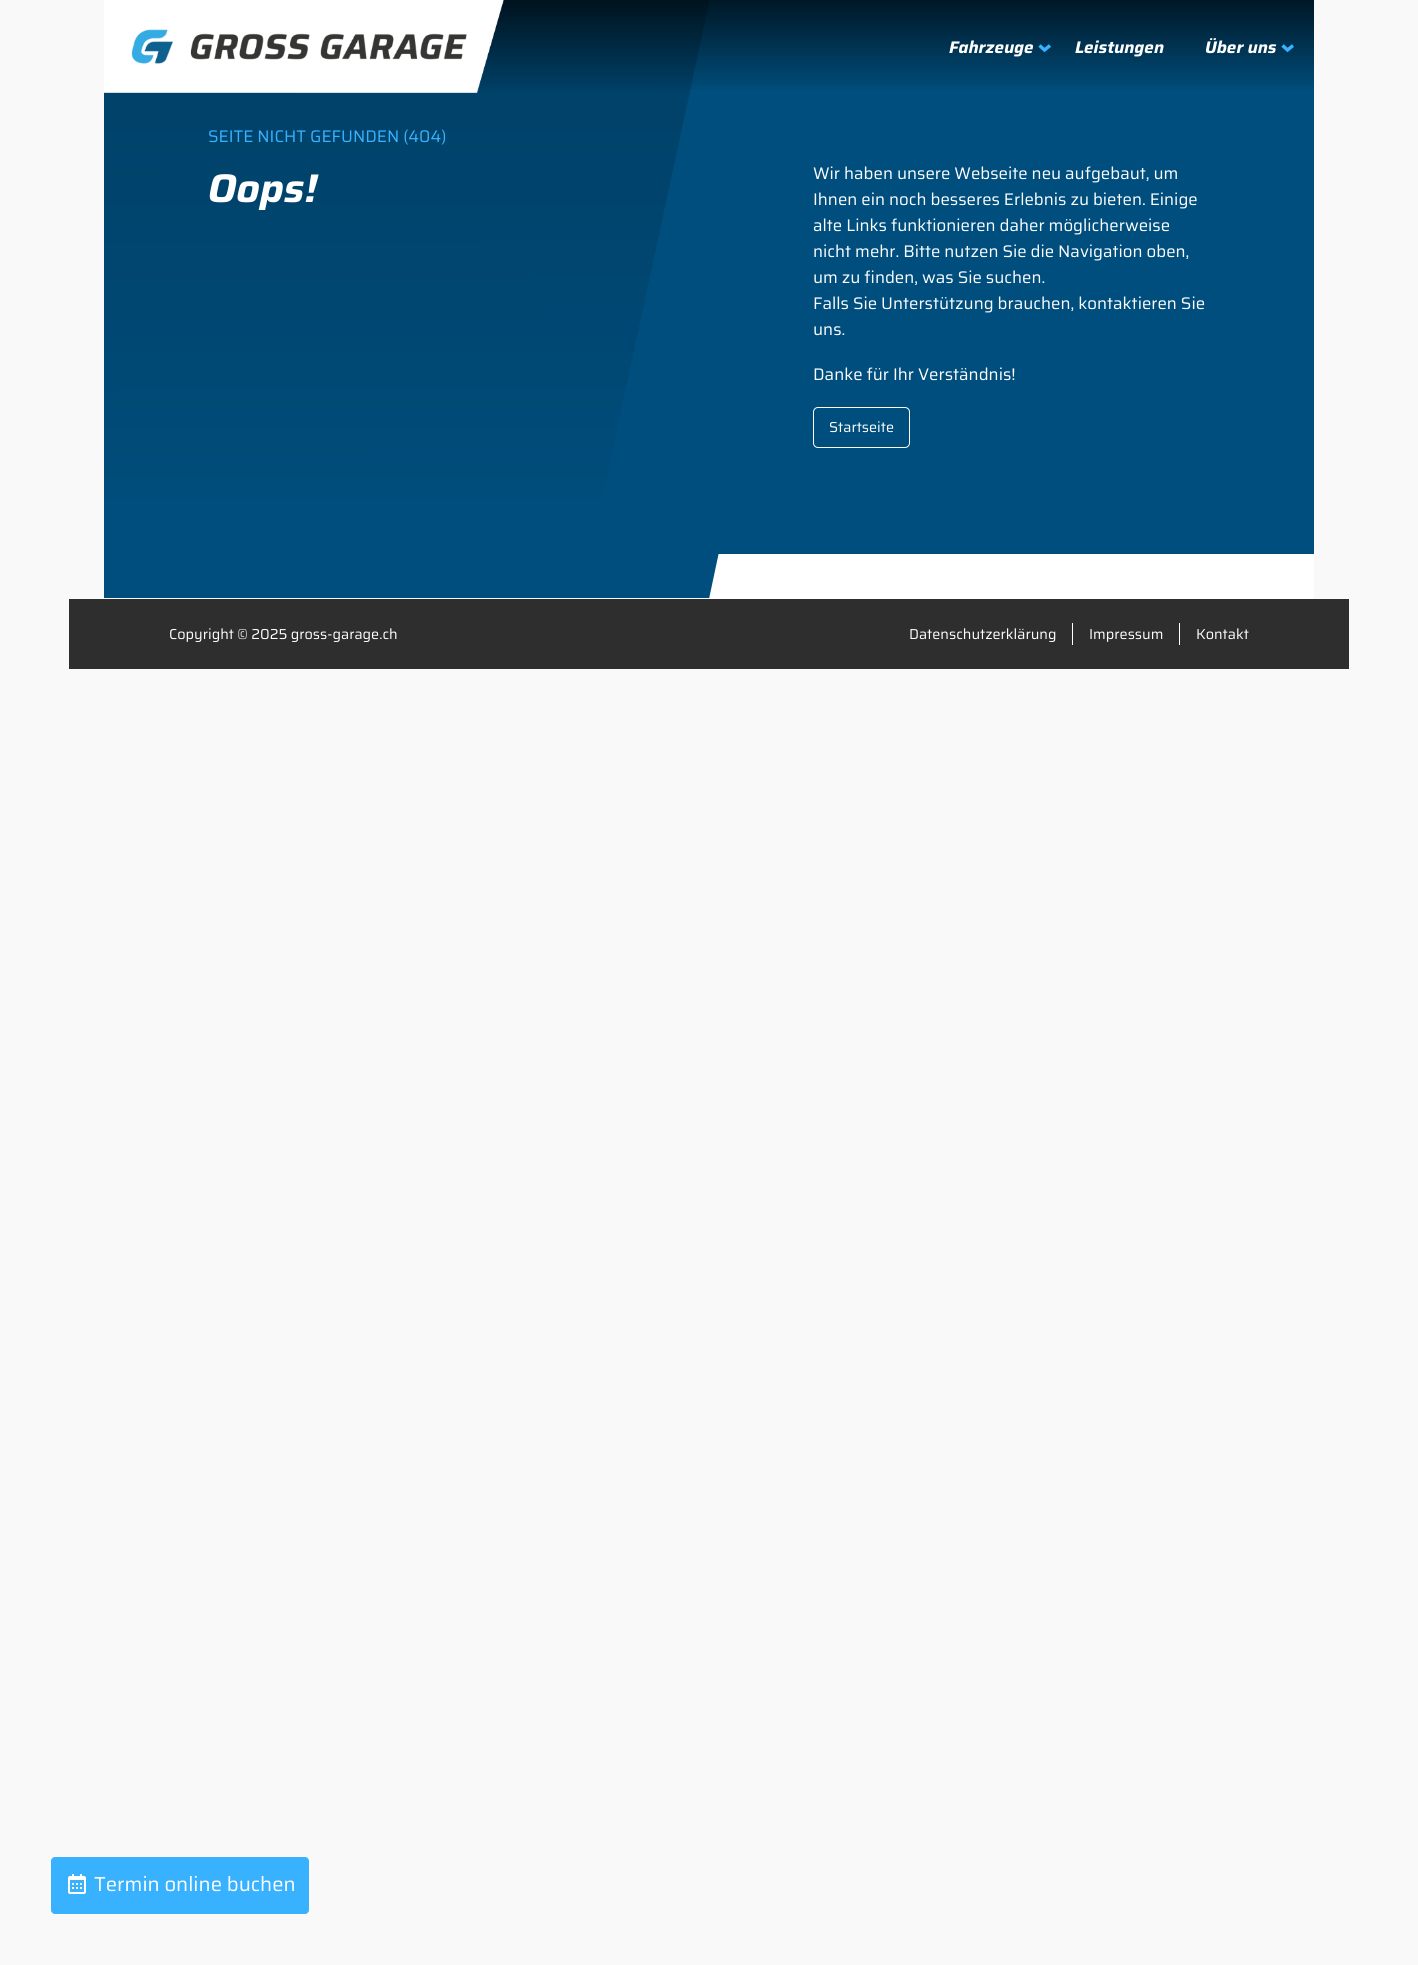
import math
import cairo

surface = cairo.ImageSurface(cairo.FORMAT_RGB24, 1418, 1965)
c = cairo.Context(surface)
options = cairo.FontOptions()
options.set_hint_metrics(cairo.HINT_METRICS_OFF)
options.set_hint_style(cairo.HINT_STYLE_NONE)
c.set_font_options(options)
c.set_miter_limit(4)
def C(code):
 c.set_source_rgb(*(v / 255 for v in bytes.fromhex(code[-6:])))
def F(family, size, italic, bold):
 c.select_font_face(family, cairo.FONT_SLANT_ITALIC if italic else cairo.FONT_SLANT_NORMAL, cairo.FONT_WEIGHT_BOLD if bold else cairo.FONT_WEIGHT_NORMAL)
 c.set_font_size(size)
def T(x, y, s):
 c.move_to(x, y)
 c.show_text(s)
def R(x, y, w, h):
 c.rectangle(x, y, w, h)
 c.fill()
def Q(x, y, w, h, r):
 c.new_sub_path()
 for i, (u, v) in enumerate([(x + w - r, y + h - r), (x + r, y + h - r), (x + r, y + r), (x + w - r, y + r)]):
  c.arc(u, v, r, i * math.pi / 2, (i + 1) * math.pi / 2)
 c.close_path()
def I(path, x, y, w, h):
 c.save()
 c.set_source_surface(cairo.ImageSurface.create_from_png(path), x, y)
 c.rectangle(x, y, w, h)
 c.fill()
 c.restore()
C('f9f9f9')
c.paint()
C('004e7d')
R(104,0,1210,598)
gradient = cairo.LinearGradient(406,0,407,558)
gradient.add_color_stop_rgba(0,0,0.247,0.396,1)
gradient.add_color_stop_rgba(1,0,0.306,0.49,1)
c.set_source(gradient)
R(104,0,605,500)
C('004e7d')
c.new_path()
c.move_to(709,3)
c.line_to(590,555)
c.line_to(709,555)
c.close_path()
c.fill()
gradient = cairo.LinearGradient(709,0,709,93)
gradient.add_color_stop_rgba(0,0,0,0,.7)
gradient.add_color_stop_rgba(1,0,0,0,0)
c.set_source(gradient)
R(477,0,837,90)
I('1.png',104,0,400,93)
F('Saira Thin',16.8,1,0)
C('ffffff')
T(949,53,'Fahrzeuge')
c.new_path()
c.move_to(1039.5,45.5)
c.line_to(1044.5,50)
c.line_to(1050,45.5)
C('38b2ff')
c.set_line_width(3.4)
c.stroke()
C('ffffff')
T(1075,53,'Leistungen')
T(1205,53,'Über uns')
c.new_path()
c.move_to(1282.5,45.5)
c.line_to(1287.5,50)
c.line_to(1293,45.5)
C('38b2ff')
c.stroke()
F('Saira Thin',16.8,0,0)
T(208,142,'SEITE NICHT GEFUNDEN (404)')
F('Saira Thin',40,1,0)
C('ffffff')
T(208,202,'Oops!')
F('Saira Thin',16.8,0,0)
T(813,179,'Wir haben unsere Webseite neu aufgebaut, um')
T(813,205,'Ihnen ein noch besseres Erlebnis zu bieten. Einige')
T(813,231,'alte Links funktionieren daher möglicherweise')
T(813,257,'nicht mehr. Bitte nutzen Sie die Navigation oben,')
T(813,283,'um zu finden, was Sie suchen.')
T(813,309,'Falls Sie Unterstützung brauchen, kontaktieren Sie')
T(813,335,'uns.')
T(813,380,'Danke für Ihr Verständnis!')
Q(813.5,407.5,96,40,4.5)
c.set_line_width(1)
c.stroke()
F('Saira Thin',14.4,0,0)
T(829,432,'Startseite')
c.save()
c.rectangle(709,554,605,45)
c.clip()
c.new_path()
c.move_to(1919,599)
c.line_to(709,599)
c.line_to(921,-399)
c.line_to(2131,-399)
c.close_path()
c.fill()
c.restore()
C('2e2e2e')
R(69,599,1280,70)
C('ffffff')
T(169,639,'Copyright © 2025 gross-garage.ch')
R(1072,623,1,22)
T(909,639,'Datenschutzerklärung')
R(1179,623,1,22)
T(1089,639,'Impressum')
T(1196,639,'Kontakt')
C('38b2ff')
Q(50.5,1856.5,259,58,4.5)
c.fill_preserve()
C('ffffff')
c.stroke()
I('2.png',68,1874,18,20)
F('Saira Thin',20.25,0,0)
T(94,1891,'Termin online buchen')
surface.write_to_png('o.png')
